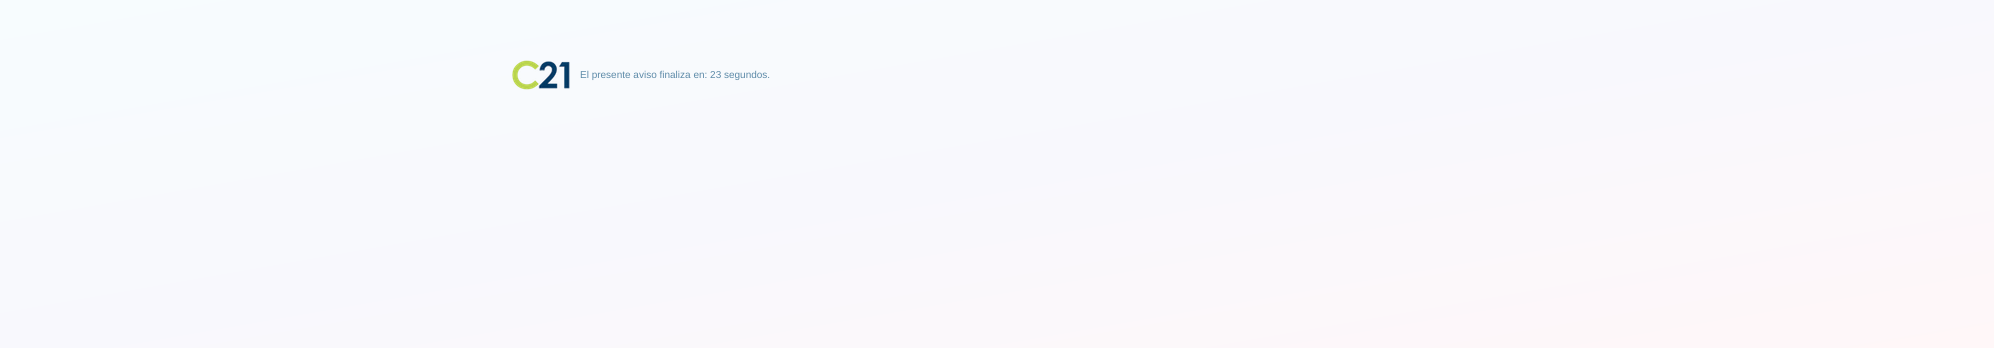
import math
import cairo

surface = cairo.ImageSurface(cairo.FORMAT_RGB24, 1994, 348)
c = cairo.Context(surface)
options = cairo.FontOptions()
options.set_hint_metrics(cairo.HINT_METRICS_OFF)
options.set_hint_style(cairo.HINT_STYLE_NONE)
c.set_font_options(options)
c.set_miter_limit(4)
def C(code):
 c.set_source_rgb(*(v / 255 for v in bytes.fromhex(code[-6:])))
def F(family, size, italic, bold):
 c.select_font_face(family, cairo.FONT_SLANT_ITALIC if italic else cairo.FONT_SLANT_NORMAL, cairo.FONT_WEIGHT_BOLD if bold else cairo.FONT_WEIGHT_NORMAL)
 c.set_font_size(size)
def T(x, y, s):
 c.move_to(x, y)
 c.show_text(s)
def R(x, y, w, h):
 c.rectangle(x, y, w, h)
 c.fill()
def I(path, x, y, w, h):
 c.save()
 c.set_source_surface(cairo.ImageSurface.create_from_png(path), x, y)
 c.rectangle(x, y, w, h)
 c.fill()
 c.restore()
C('ffffff')
c.paint()
gradient = cairo.LinearGradient(938,-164,1056,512)
gradient.add_color_stop_rgba(0,0.969,0.988,0.996,1)
gradient.add_color_stop_rgba(.5,0.973,0.973,0.992,1)
gradient.add_color_stop_rgba(1,1,0.969,0.973,1)
c.set_source(gradient)
R(0,0,1994,348)
I('1.png',512,60,58,30)
F('Liberation Sans',10,0,0)
C('5d8aa8')
T(580,78,'El presente aviso finaliza en: 23 segundos.')
surface.write_to_png('o.png')
